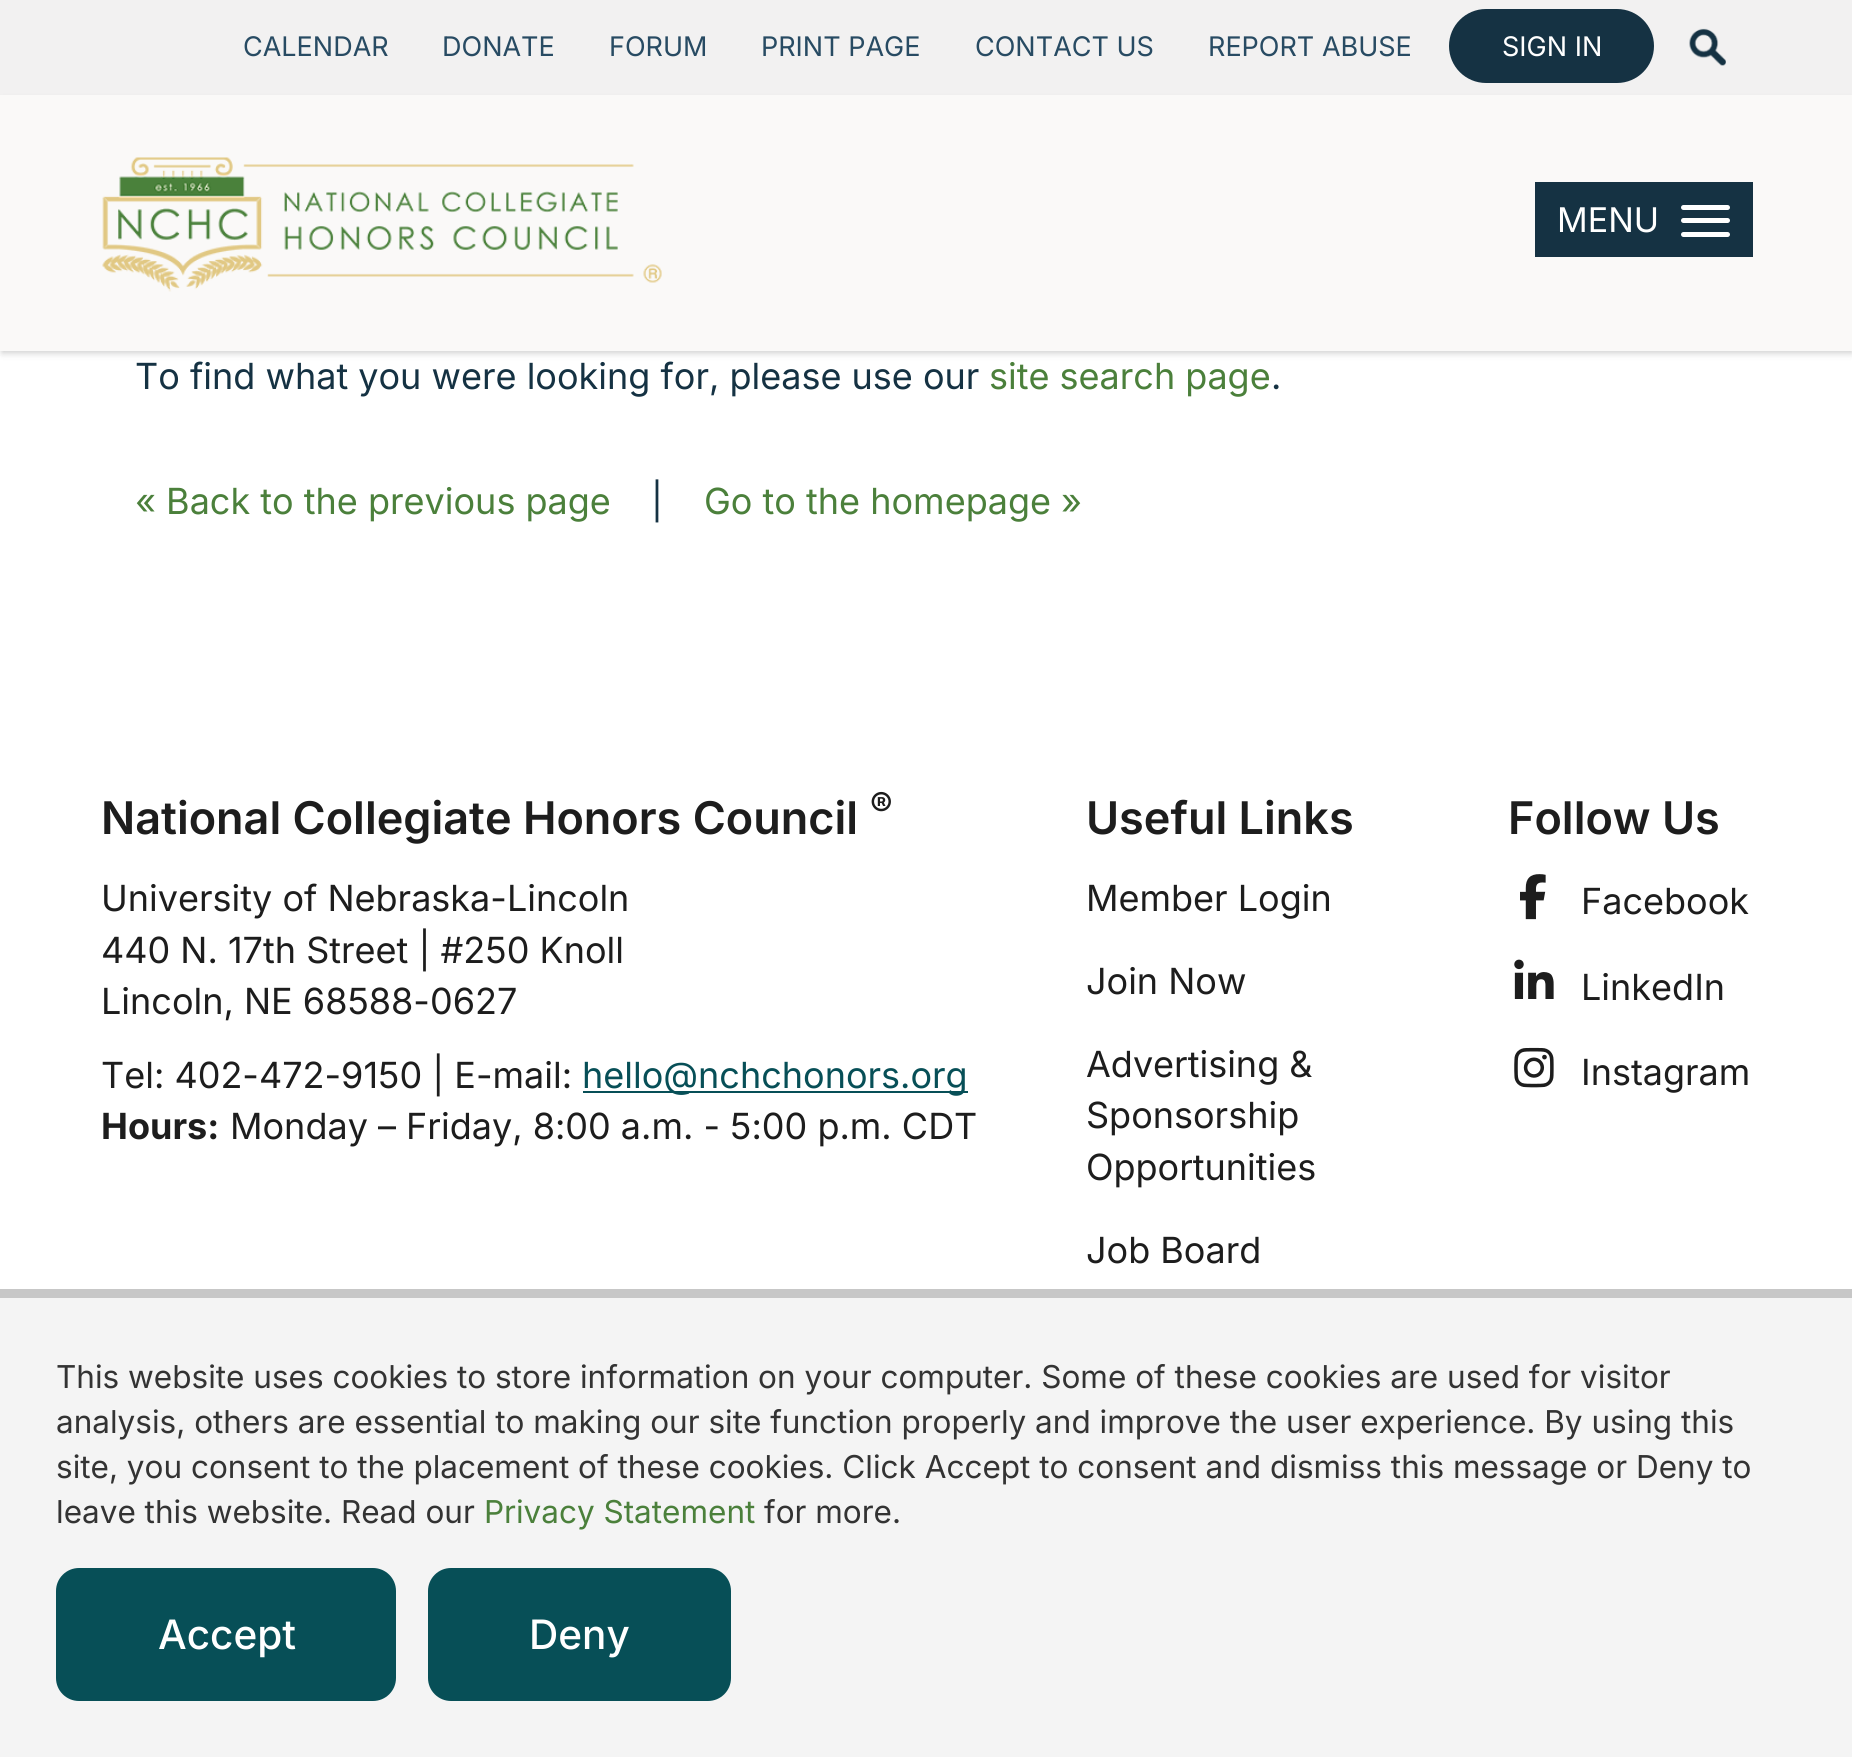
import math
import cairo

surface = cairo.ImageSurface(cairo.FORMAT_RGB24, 1852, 1757)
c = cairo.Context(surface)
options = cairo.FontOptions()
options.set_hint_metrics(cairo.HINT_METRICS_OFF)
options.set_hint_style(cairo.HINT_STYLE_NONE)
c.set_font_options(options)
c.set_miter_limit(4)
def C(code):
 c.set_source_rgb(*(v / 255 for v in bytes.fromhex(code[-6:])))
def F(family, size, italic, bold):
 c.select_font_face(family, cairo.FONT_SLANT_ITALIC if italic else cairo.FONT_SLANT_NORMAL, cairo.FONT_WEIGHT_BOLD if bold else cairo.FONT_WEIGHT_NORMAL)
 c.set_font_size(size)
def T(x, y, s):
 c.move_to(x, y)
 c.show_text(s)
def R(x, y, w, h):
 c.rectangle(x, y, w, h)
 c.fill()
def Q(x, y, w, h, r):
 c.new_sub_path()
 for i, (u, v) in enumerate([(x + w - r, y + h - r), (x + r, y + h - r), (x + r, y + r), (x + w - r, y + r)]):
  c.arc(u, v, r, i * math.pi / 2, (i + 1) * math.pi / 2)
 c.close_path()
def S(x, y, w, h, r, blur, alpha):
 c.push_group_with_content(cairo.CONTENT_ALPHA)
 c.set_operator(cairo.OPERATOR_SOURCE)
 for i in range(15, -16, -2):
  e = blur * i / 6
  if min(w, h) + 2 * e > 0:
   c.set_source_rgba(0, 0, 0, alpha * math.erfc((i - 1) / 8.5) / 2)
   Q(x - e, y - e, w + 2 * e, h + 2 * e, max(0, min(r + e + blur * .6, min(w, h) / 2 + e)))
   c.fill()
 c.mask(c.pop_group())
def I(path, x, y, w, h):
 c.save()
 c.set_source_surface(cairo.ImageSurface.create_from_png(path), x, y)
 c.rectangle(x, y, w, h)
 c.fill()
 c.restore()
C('ffffff')
c.paint()
C('f2f1f1')
R(0,0,1852,95)
F('Inter',27,0,0)
C('284b63')
T(243,56,'CALENDAR')
T(442,56,'DONATE')
T(609,56,'FORUM')
T(761,56,'PRINT PAGE')
T(975,56,'CONTACT US')
T(1208,56,'REPORT ABUSE')
C('153243')
Q(1449,9,205,74,37)
c.fill()
C('ffffff')
T(1502,56,'SIGN IN')
I('1.png',1689,28,37,38)
C('000000')
S(2,101,1850,252,0,3.5,.2)
C('faf9f8')
R(0,95,1852,256)
I('2.png',102,157,560,135)
C('153243')
R(1535,182,218,75)
F('Inter',34,0,0)
C('ffffff')
T(1557,232,'MENU')
Q(1681,205,49,5,2.5)
c.fill()
Q(1681,218,49,5,2.5)
c.fill()
Q(1681,232,49,5,2.5)
c.fill()
F('Inter',36,0,0)
C('153243')
T(135,389,'To find what you were looking for, please use our')
C('4b803b')
T(989,389,'site search page')
C('153243')
T(1271,389,'.')
C('4b803b')
T(135,514,'« Back to the previous page')
C('153243')
T(651,514,'|')
C('4b803b')
T(704,514,'Go to the homepage »')
F('Inter SemiBold',45,0,0)
C('1d1d1d')
T(101,834,'National Collegiate Honors Council')
F('Inter SemiBold',34,0,0)
T(870,817,'®')
F('Inter',36,0,0)
T(101,911,'University of Nebraska-Lincoln')
T(101,963,'440 N. 17th Street | #250 Knoll')
T(101,1014,'Lincoln, NE 68588-0627')
T(101,1088,'Tel: 402-472-9150 | E-mail:')
C('074f57')
R(583,1091,385,2)
T(582,1088,'hello@nchchonors.org')
F('Inter',36,0,1)
C('1d1d1d')
T(101,1139,'Hours:')
F('Inter',36,0,0)
T(230,1139,'Monday – Friday, 8:00 a.m. - 5:00 p.m. CDT')
F('Inter SemiBold',45,0,0)
T(1086,834,'Useful Links')
F('Inter',36,0,0)
T(1086,911,'Member Login')
T(1086,994,'Join Now')
T(1086,1077,'Advertising &')
T(1086,1128,'Sponsorship')
T(1086,1180,'Opportunities')
T(1086,1263,'Job Board')
F('Inter SemiBold',45,0,0)
T(1508,834,'Follow Us')
I('3.png',1520,874,26,46)
F('Inter',36,0,0)
T(1581,914,'Facebook')
I('4.png',1514,959,40,40)
T(1581,1000,'LinkedIn')
I('5.png',1514,1047,40,41)
T(1581,1085,'Instagram')
C('f4f4f4')
R(0,1298,1852,459)
C('c7c7c7')
R(0,1289,1852,9)
F('Inter',31.5,0,0)
C('333333')
T(56,1388,'This website uses cookies to store information on your computer. Some of these cookies are used for visitor')
T(56,1433,'analysis, others are essential to making our site function properly and improve the user experience. By using this')
T(56,1478,'site, you consent to the placement of these cookies. Click Accept to consent and dismiss this message or Deny to')
T(56,1523,'leave this website. Read our')
C('4b803b')
T(484,1523,'Privacy Statement')
C('333333')
T(764,1523,'for more.')
C('074f57')
Q(56,1568,340,133,23)
c.fill()
F('Inter Medium',40.5,0,0)
C('ffffff')
T(158,1649,'Accept')
C('074f57')
Q(428,1568,303,133,23)
c.fill()
C('ffffff')
T(529,1649,'Deny')
surface.write_to_png('o.png')
